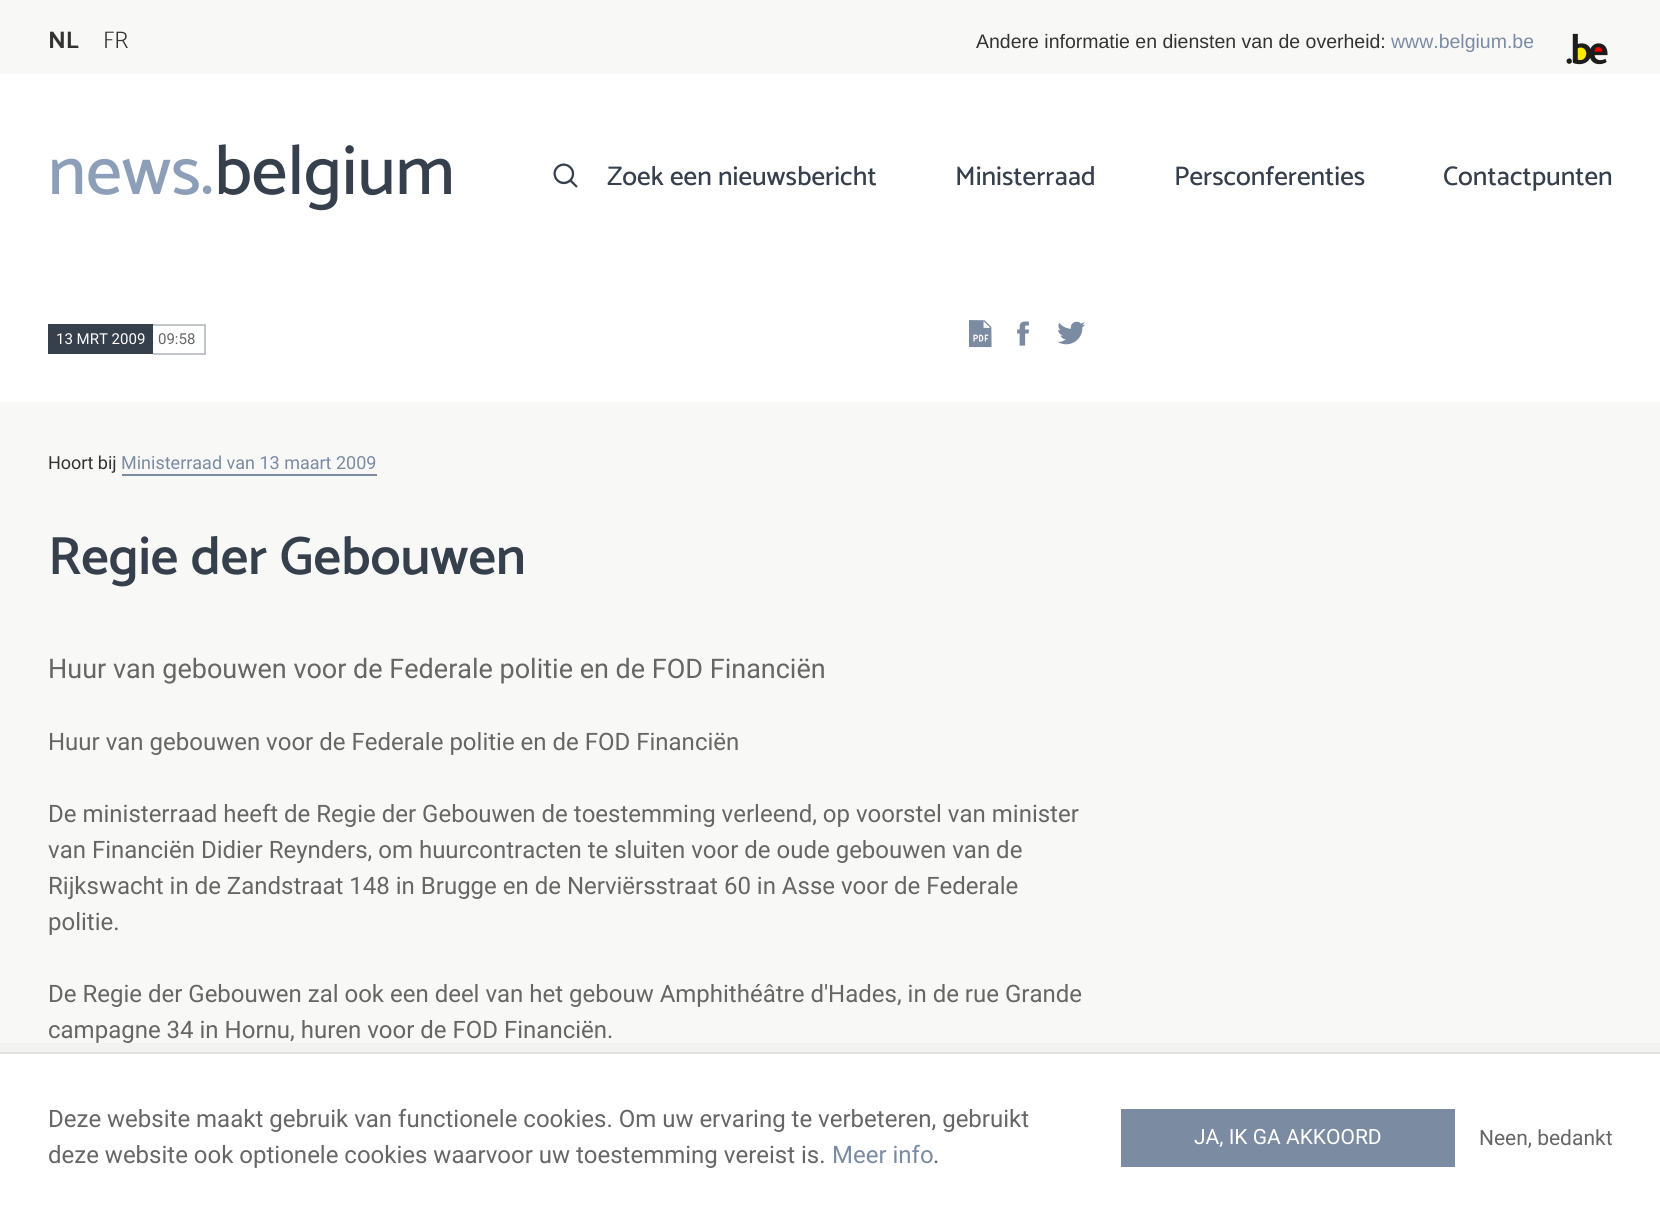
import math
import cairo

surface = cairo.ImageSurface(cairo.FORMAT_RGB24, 1660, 1221)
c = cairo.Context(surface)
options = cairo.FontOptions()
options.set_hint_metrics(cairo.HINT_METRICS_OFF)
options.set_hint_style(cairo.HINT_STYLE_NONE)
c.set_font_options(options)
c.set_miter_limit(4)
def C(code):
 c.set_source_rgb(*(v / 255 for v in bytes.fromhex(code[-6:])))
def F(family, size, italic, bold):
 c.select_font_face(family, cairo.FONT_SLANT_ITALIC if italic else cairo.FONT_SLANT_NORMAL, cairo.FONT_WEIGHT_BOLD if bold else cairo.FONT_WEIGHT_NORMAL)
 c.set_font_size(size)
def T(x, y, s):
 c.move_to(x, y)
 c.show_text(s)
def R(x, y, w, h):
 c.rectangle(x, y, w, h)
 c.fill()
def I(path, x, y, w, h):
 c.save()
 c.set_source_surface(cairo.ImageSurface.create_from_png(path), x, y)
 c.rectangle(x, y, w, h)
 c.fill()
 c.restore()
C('f8f8f7')
c.paint()
F('Catamaran',24,0,1)
C('333333')
T(48,48,'NL')
F('Catamaran Light',24,0,0)
T(103,48,'FR')
F('Liberation Sans',19.5,0,0)
T(976,48,'Andere informatie en diensten van de overheid:')
C('7b8ba2')
T(1391,48,'www.belgium.be')
I('1.png',1566,33,42,32)
C('ffffff')
R(0,74,1660,328)
F('Catamaran Medium',70.5,0,0)
C('8c9eb8')
T(48,194,'news.')
C('363f4c')
T(214,194,'belgium')
I('2.png',553,163,25,25)
F('Catamaran Medium',27,0,0)
T(607,185,'Zoek een nieuwsbericht')
T(955,185,'Ministerraad')
T(1174,185,'Persconferenties')
T(1443,185,'Contactpunten')
R(48,324,105,30)
F('Roboto',15,0,0)
C('ffffff')
T(56,344,'13 MRT 2009')
C('c2c5c9')
R(153,324,53,2)
R(204,324,2,30)
R(153,353,53,2)
C('666666')
T(158,344,'09:58')
I('3.png',969,320,23,28)
I('4.png',1017,321,13,25)
I('5.png',1057,321,29,24)
F('Roboto',18,0,0)
C('333333')
T(48,469,'Hoort bij')
C('7b8ba2')
T(121,469,'Ministerraad van 13 maart 2009')
R(122,474,255,2)
F('Catamaran SemiBold',54,0,0)
C('363f4c')
T(48,574,'Regie der Gebouwen')
F('Roboto',27,0,0)
C('666666')
T(48,678,'Huur van gebouwen voor de Federale politie en de FOD Financiën')
F('Roboto',24,0,0)
T(48,750,'Huur van gebouwen voor de Federale politie en de FOD Financiën')
T(48,822,'De ministerraad heeft de Regie der Gebouwen de toestemming verleend, op voorstel van minister')
T(48,858,'van Financiën Didier Reynders, om huurcontracten te sluiten voor de oude gebouwen van de')
T(48,894,'Rijkswacht in de Zandstraat 148 in Brugge en de Nerviërsstraat 60 in Asse voor de Federale')
T(48,930,'politie.')
T(48,1002,'De Regie der Gebouwen zal ook een deel van het gebouw Amphithéâtre d\'Hades, in de rue Grande')
T(48,1038,'campagne 34 in Hornu, huren voor de FOD Financiën.')
C('f2f2f1')
c.new_path()
c.move_to(-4,1043)
c.line_to(-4,1221)
c.line_to(0,1221)
c.line_to(0,1052)
c.line_to(1660,1052)
c.line_to(1660,1221)
c.line_to(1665,1221)
c.line_to(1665,1043)
c.close_path()
c.fill()
C('ffffff')
R(0,1054,1660,167)
C('e1e1e1')
R(0,1052,1660,2)
C('666666')
T(48,1127,'Deze website maakt gebruik van functionele cookies. Om uw ervaring te verbeteren, gebruikt')
T(48,1163,'deze website ook optionele cookies waarvoor uw toestemming vereist is.')
C('7b8ba2')
T(832,1163,'Meer info')
C('666666')
T(933,1163,'.')
C('7b8ba2')
R(1121,1109,334,58)
F('Roboto',21,0,0)
C('ffffff')
T(1194,1144,'JA, IK GA AKKOORD')
C('666666')
T(1479,1145,'Neen, bedankt')
surface.write_to_png('o.png')
